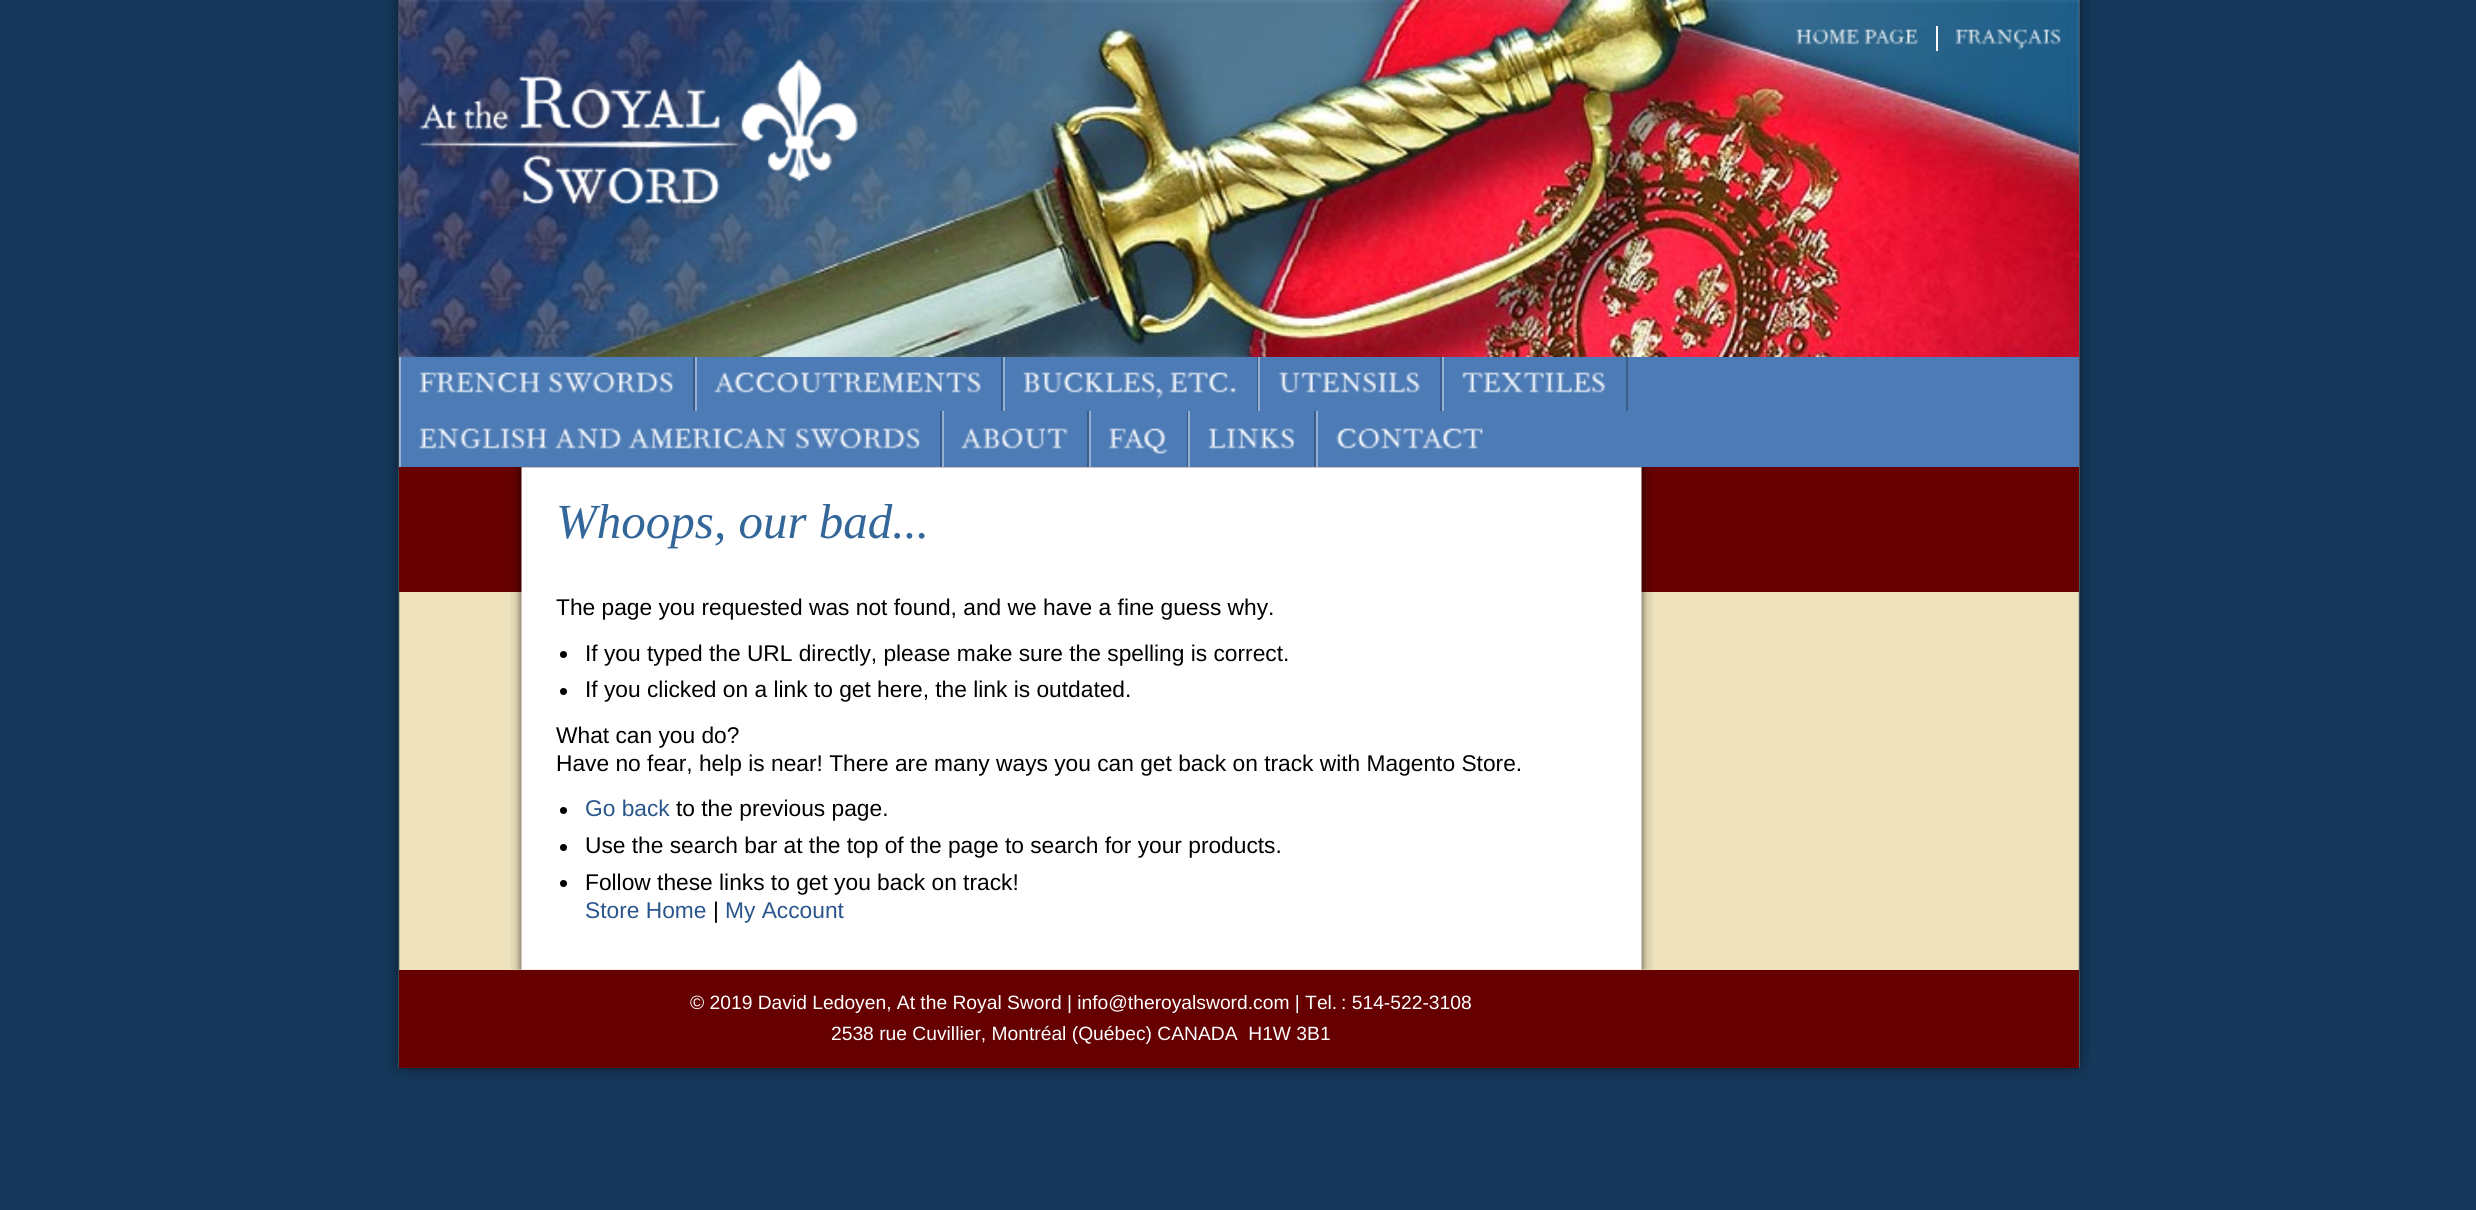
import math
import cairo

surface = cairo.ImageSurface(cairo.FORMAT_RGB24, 2476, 1210)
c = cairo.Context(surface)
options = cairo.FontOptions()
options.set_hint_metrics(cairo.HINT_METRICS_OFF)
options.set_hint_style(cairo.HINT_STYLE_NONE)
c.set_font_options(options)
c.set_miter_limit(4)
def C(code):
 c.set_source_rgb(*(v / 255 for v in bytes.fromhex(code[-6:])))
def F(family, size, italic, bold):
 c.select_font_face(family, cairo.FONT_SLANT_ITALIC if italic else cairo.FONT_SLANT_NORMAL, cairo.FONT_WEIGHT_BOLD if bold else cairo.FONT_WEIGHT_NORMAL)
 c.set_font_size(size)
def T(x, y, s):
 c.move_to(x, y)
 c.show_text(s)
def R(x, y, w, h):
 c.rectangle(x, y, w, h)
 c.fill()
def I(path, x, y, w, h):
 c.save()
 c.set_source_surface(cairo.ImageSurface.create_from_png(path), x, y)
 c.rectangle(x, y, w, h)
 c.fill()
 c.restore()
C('15375a')
c.paint()
I('1.png',388,0,1702,1078)
I('2.png',399,0,1680,357)
C('ffffff')
R(1936,26,2,25)
I('3.png',1796,29,63,16)
I('4.png',1864,29,55,16)
I('5.png',1955,29,106,21)
I('6.png',419,59,439,146)
C('4d7bb5')
R(401,357,1678,110)
C('3a5c88')
R(693,357,2,54)
C('94b0d3')
R(399,357,2,110)
I('7.png',418,372,123,21)
I('8.png',549,372,125,21)
C('3a5c88')
R(1001,357,2,54)
C('94b0d3')
R(695,357,2,54)
I('9.png',714,372,267,21)
C('3a5c88')
R(1257,357,1,54)
C('94b0d3')
R(1003,357,2,54)
I('10.png',1023,372,140,28)
I('11.png',1169,372,67,21)
C('3a5c88')
R(1440,357,2,54)
C('94b0d3')
R(1258,357,2,54)
I('12.png',1279,372,141,21)
C('3a5c88')
R(1626,357,2,54)
C('94b0d3')
R(1442,357,2,54)
I('13.png',1462,372,144,21)
C('3a5c88')
R(940,411,2,56)
I('14.png',418,428,130,21)
I('15.png',554,428,68,21)
I('16.png',628,428,159,21)
I('17.png',795,428,126,21)
R(1087,411,2,56)
C('94b0d3')
R(942,411,2,56)
I('18.png',960,428,108,21)
C('3a5c88')
R(1187,411,1,56)
C('94b0d3')
R(1089,411,2,56)
I('19.png',1108,428,60,26)
C('3a5c88')
R(1314,411,2,56)
C('94b0d3')
R(1188,411,2,56)
I('20.png',1208,428,88,21)
R(1316,411,2,56)
I('21.png',1336,428,147,21)
C('660000')
R(399,467,1680,125)
I('22.png',510,467,1143,503)
F('Liberation Serif',49,1,0)
C('336699')
T(556,538,'Whoops, our bad...')
F('Liberation Sans',22.75,0,0)
C('000000')
T(556,615,'The page you requested was not found, and we have a fine guess why.')
c.new_path()
c.arc(563.5,654.5,3.5,0,2 * math.pi)
c.fill()
T(585,661,'If you typed the URL directly, please make sure the spelling is correct.')
c.new_path()
c.arc(563.5,691.5,3.5,0,2 * math.pi)
c.fill()
T(585,697,'If you clicked on a link to get here, the link is outdated.')
T(556,743,'What can you do?')
T(556,771,'Have no fear, help is near! There are many ways you can get back on track with Magento Store.')
c.new_path()
c.arc(563.5,810.5,3.5,0,2 * math.pi)
c.fill()
C('2a568d')
T(585,816,'Go back')
C('000000')
T(676,816,'to the previous page.')
c.new_path()
c.arc(563.5,847.5,3.5,0,2 * math.pi)
c.fill()
T(585,853,'Use the search bar at the top of the page to search for your products.')
c.new_path()
c.arc(563.5,883.5,3.5,0,2 * math.pi)
c.fill()
T(585,890,'Follow these links to get you back on track!')
C('2a568d')
T(585,918,'Store Home')
C('000000')
T(713,918,'|')
C('2a568d')
T(725,918,'My Account')
C('660000')
R(399,970,1680,98)
F('Liberation Sans',19.25,0,0)
C('ffffff')
T(690,1009,'© 2019 David Ledoyen, At the Royal Sword | info@theroyalsword.com | Tel. : 514-522-3108')
T(831,1040,'2538 rue Cuvillier, Montréal (Québec) CANADA  H1W 3B1')
surface.write_to_png('o.png')
